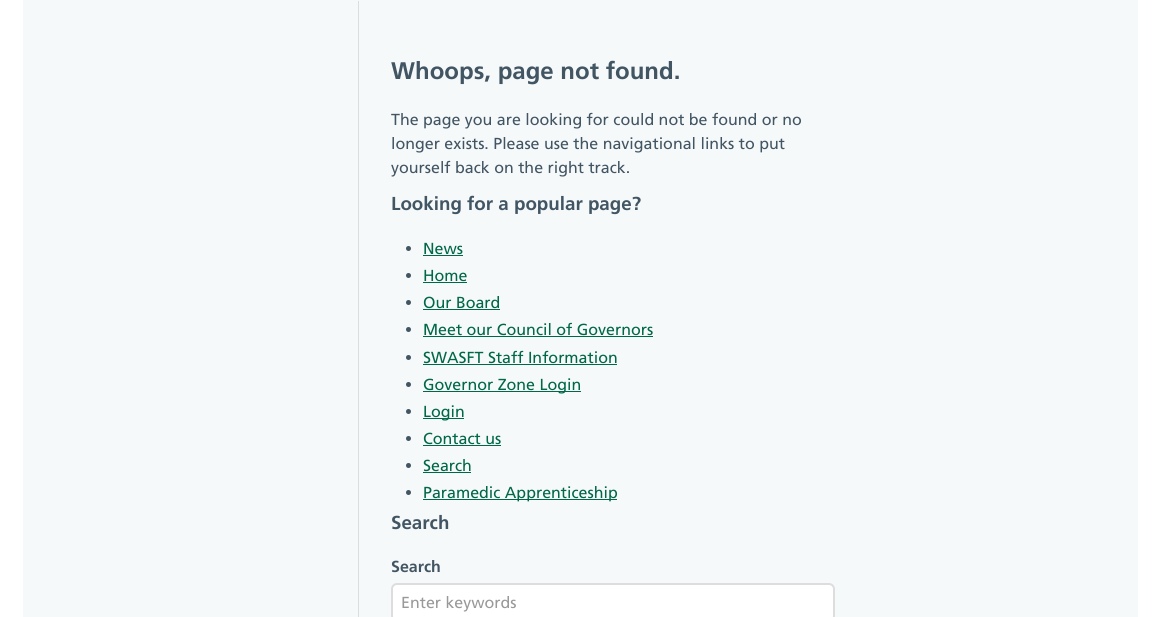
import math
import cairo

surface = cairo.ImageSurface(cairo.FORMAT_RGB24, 1161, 617)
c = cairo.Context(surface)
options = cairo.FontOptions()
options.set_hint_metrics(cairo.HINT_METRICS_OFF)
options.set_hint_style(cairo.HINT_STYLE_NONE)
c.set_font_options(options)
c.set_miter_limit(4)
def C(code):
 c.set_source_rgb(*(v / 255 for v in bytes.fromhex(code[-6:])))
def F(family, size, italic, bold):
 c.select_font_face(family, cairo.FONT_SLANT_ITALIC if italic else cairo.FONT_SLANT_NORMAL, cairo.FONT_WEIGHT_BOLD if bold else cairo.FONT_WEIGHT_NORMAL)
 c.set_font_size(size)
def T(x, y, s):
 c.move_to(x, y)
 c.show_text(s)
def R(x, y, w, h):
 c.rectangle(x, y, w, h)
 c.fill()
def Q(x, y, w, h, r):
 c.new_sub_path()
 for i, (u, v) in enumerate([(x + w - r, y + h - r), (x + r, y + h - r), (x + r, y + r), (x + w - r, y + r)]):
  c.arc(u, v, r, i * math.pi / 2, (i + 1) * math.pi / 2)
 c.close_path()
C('ffffff')
c.paint()
C('f6f9fa')
R(23,0,1115,617)
C('dddddd')
R(358,1,1,616)
F('Frutiger',24,0,1)
C('425563')
T(391,79,'Whoops, page not found.')
F('Frutiger',16,0,0)
T(391,125,'The page you are looking for could not be found or no')
T(391,149,'longer exists. Please use the navigational links to put')
T(391,173,'yourself back on the right track.')
F('Frutiger',18.75,0,1)
T(391,210,'Looking for a popular page?')
c.new_path()
c.arc(408.5,248.5,2.5,0,2 * math.pi)
c.fill()
F('Frutiger',16,0,0)
C('006747')
T(423,254,'News')
R(423,255,40,1)
C('425563')
c.new_path()
c.arc(408.5,275.5,2.5,0,2 * math.pi)
c.fill()
C('006747')
T(423,281,'Home')
R(423,282,44,1)
C('425563')
c.new_path()
c.arc(408.5,302.5,2.5,0,2 * math.pi)
c.fill()
C('006747')
T(423,308,'Our Board')
R(423,309,77,1)
C('425563')
c.new_path()
c.arc(408.5,329.5,2.5,0,2 * math.pi)
c.fill()
C('006747')
T(423,335,'Meet our Council of Governors')
R(423,336,230,1)
C('425563')
c.new_path()
c.arc(408.5,357.5,2.5,0,2 * math.pi)
c.fill()
C('006747')
T(423,363,'SWASFT Staff Information')
R(423,364,194,1)
C('425563')
c.new_path()
c.arc(408.5,384.5,2.5,0,2 * math.pi)
c.fill()
C('006747')
R(423,391,158,1)
T(423,390,'Governor Zone Login')
C('425563')
c.new_path()
c.arc(408.5,411.5,2.5,0,2 * math.pi)
c.fill()
C('006747')
R(423,418,41,1)
T(423,417,'Login')
C('425563')
c.new_path()
c.arc(408.5,438.5,2.5,0,2 * math.pi)
c.fill()
C('006747')
T(423,444,'Contact us')
R(423,445,78,1)
C('425563')
c.new_path()
c.arc(408.5,465.5,2.5,0,2 * math.pi)
c.fill()
C('006747')
T(423,471,'Search')
R(423,472,48,1)
C('425563')
c.new_path()
c.arc(408.5,492.5,2.5,0,2 * math.pi)
c.fill()
C('006747')
R(423,499,194,1)
T(423,498,'Paramedic Apprenticeship')
F('Frutiger',18.75,0,1)
C('425563')
T(391,529,'Search')
F('Frutiger',16,0,1)
T(391,572,'Search')
C('ffffff')
Q(392,584,442,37,5)
c.fill_preserve()
C('dddddd')
c.stroke()
F('Frutiger',16,0,0)
C('999999')
T(401,608,'Enter keywords')
surface.write_to_png('o.png')
